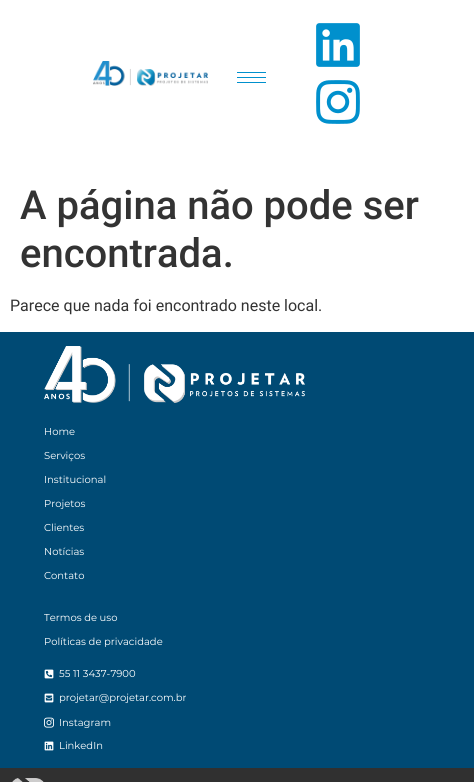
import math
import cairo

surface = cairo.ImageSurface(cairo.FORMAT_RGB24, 474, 782)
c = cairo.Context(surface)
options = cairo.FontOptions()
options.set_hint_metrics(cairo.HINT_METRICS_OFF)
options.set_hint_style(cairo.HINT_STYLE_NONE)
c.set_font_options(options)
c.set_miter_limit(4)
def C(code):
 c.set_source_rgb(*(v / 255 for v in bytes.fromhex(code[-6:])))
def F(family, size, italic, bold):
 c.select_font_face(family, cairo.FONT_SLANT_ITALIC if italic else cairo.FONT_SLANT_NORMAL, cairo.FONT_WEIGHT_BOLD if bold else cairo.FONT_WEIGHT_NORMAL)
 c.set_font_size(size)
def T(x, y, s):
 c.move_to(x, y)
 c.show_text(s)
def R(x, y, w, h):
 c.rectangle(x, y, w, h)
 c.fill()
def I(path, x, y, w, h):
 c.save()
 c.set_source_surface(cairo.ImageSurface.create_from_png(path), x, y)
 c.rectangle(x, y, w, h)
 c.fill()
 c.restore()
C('ffffff')
c.paint()
I('1.png',93,61,115,25)
C('0090cd')
R(237,72,29,1)
R(237,77,29,1)
R(237,82,29,1)
I('2.png',316,23,44,44)
I('3.png',316,80,44,44)
F('Roboto Medium',40,0,0)
C('333333')
T(20,219,'A página não pode ser')
T(20,267,'encontrada.')
F('Roboto',16,0,0)
T(10,311,'Parece que nada foi encontrado neste local.')
C('004a74')
R(0,332,474,436)
I('4.png',44,346,261,57)
F('Montserrat',10,0,0)
C('ffffff')
T(44,435,'Home')
T(44,459,'Serviços')
T(44,483,'Institucional')
T(44,507,'Projetos')
T(44,531,'Clientes')
T(44,555,'Notícias')
T(44,579,'Contato')
T(44,621,'Termos de uso')
T(44,645,'Políticas de privacidade')
I('5.png',44,669,10,10)
T(59,677,'55 11 3437-7900')
I('6.png',44,693,10,10)
T(59,701,'projetar@projetar.com.br')
I('7.png',44,717,10,11)
T(59,726,'Instagram')
I('8.png',44,741,10,10)
T(59,749,'LinkedIn')
C('303030')
R(0,768,474,14)
I('9.png',12,778,32,4)
surface.write_to_png('o.png')
